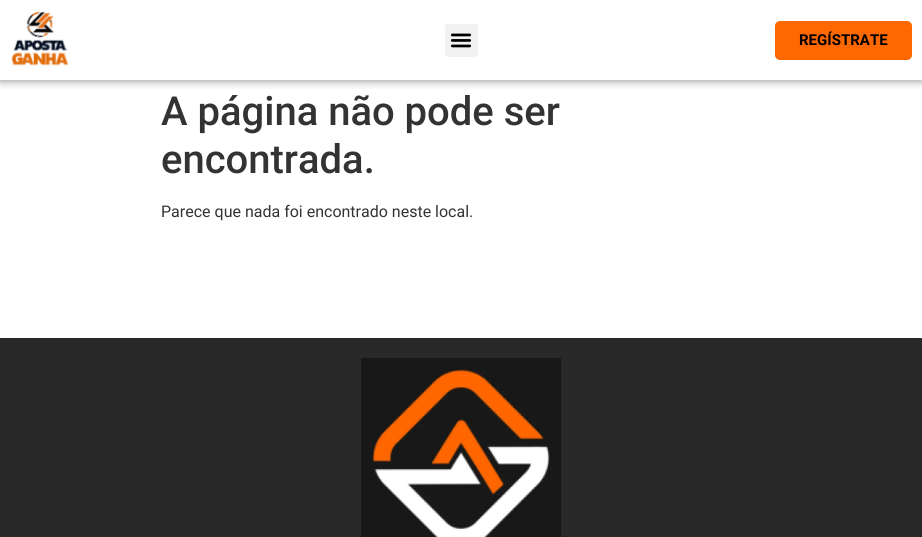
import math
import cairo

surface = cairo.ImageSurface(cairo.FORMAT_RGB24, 922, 537)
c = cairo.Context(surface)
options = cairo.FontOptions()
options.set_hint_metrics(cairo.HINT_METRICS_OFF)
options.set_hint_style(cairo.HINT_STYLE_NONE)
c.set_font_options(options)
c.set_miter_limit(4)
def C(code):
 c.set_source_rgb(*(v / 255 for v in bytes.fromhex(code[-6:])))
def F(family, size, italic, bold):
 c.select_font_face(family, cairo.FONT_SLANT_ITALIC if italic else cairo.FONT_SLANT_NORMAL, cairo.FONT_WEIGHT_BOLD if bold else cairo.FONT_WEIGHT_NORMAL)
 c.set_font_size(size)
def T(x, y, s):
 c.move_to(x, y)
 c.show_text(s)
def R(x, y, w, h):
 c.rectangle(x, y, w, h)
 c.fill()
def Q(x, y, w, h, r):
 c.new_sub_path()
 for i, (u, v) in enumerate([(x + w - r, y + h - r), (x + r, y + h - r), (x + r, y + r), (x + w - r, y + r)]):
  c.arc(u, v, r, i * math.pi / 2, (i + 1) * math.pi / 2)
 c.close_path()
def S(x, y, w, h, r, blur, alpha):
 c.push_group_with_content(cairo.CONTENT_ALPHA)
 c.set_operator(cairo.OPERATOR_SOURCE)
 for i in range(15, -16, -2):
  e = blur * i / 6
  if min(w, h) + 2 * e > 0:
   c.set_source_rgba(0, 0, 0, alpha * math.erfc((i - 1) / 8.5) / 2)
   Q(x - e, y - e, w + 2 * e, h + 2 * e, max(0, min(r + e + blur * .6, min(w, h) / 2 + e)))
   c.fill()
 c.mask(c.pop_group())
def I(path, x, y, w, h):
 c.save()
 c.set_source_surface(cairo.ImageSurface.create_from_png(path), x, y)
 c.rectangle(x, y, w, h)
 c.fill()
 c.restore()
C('ffffff')
c.paint()
c.save()
c.rectangle(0,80,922,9)
c.clip()
C('000000')
S(0,0,922,80,0,5,.5)
c.restore()
I('1.png',11,11,58,55)
C('f2f2f2')
Q(445,24,33,33,3)
c.fill()
I('2.png',450,33,22,15)
C('ff6700')
Q(775,21,137,39,5)
c.fill()
F('Roboto',15,0,1)
C('000000')
T(799,45,'REGÍSTRATE')
F('Roboto Medium',40,0,0)
C('333333')
T(161,125,'A página não pode ser')
T(161,173,'encontrada.')
F('Roboto',16,0,0)
T(161,217,'Parece que nada foi encontrado neste local.')
C('292929')
R(0,338,922,199)
I('3.png',361,358,200,179)
surface.write_to_png('o.png')
